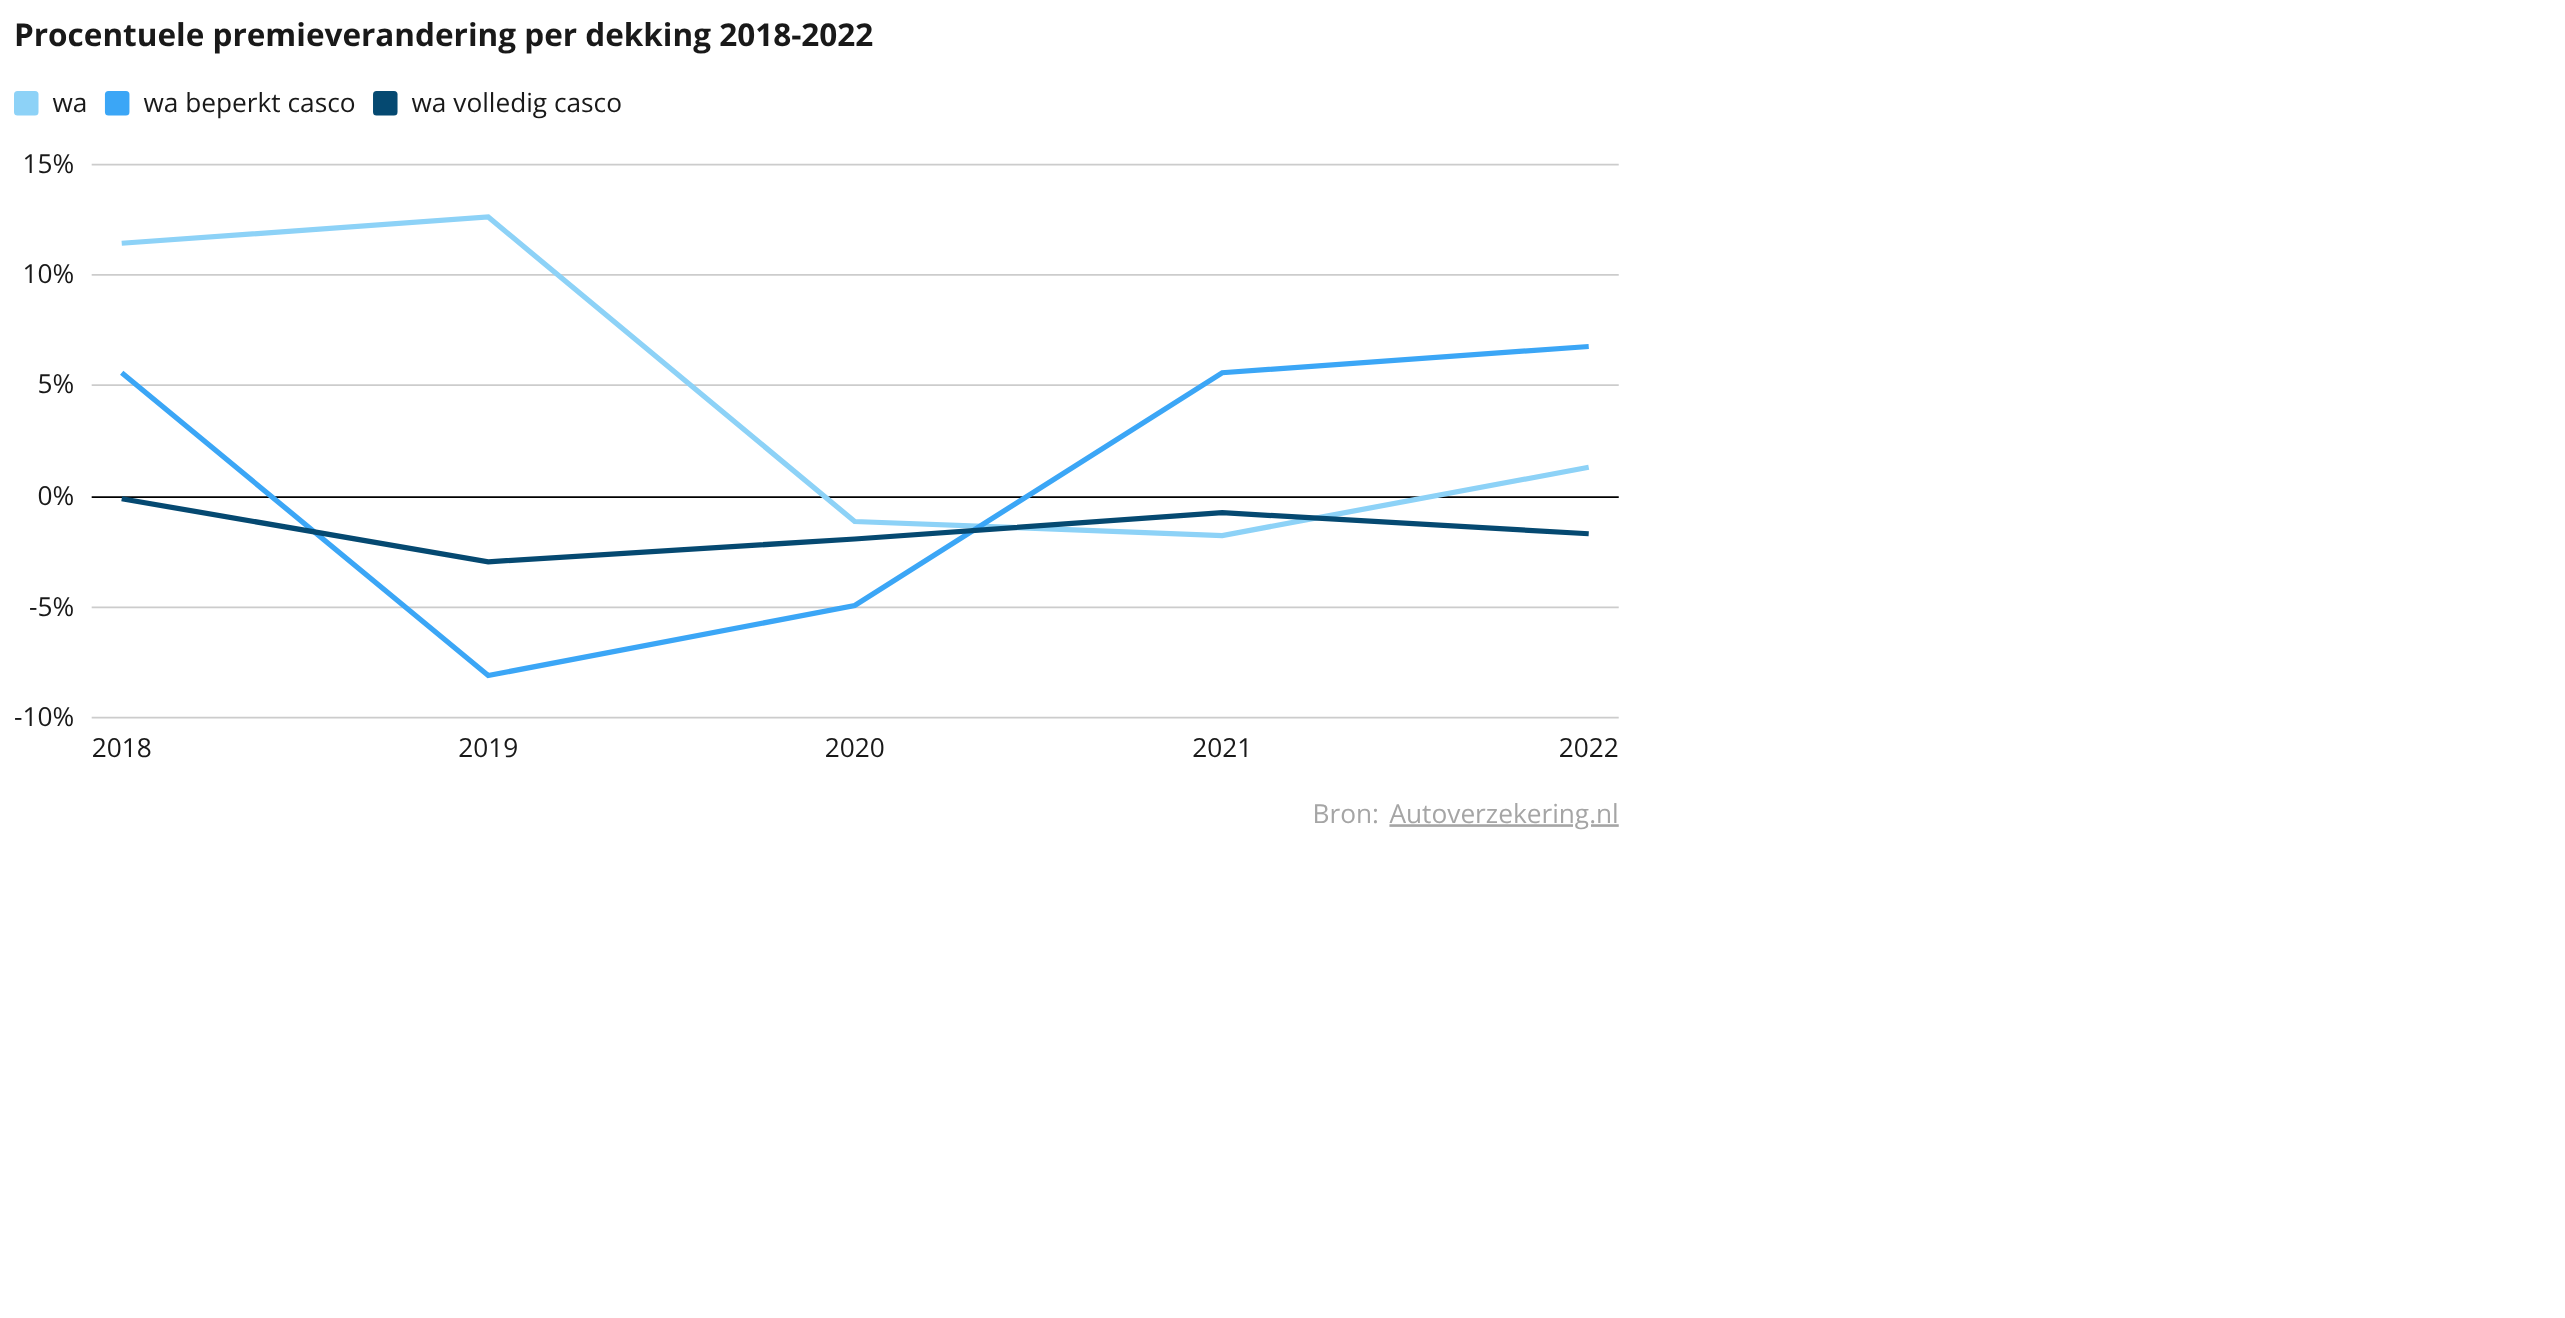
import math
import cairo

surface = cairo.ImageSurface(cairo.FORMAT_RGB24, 2565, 1318)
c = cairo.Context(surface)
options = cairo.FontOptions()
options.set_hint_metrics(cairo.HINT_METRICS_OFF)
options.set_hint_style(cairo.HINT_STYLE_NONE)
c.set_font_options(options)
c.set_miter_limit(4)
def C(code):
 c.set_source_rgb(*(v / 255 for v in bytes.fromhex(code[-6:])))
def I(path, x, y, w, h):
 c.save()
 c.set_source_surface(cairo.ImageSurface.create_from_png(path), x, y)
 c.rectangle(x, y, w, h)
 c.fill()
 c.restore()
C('ffffff')
c.paint()
I('1.png',14,22,1605,808)
surface.write_to_png('o.png')
